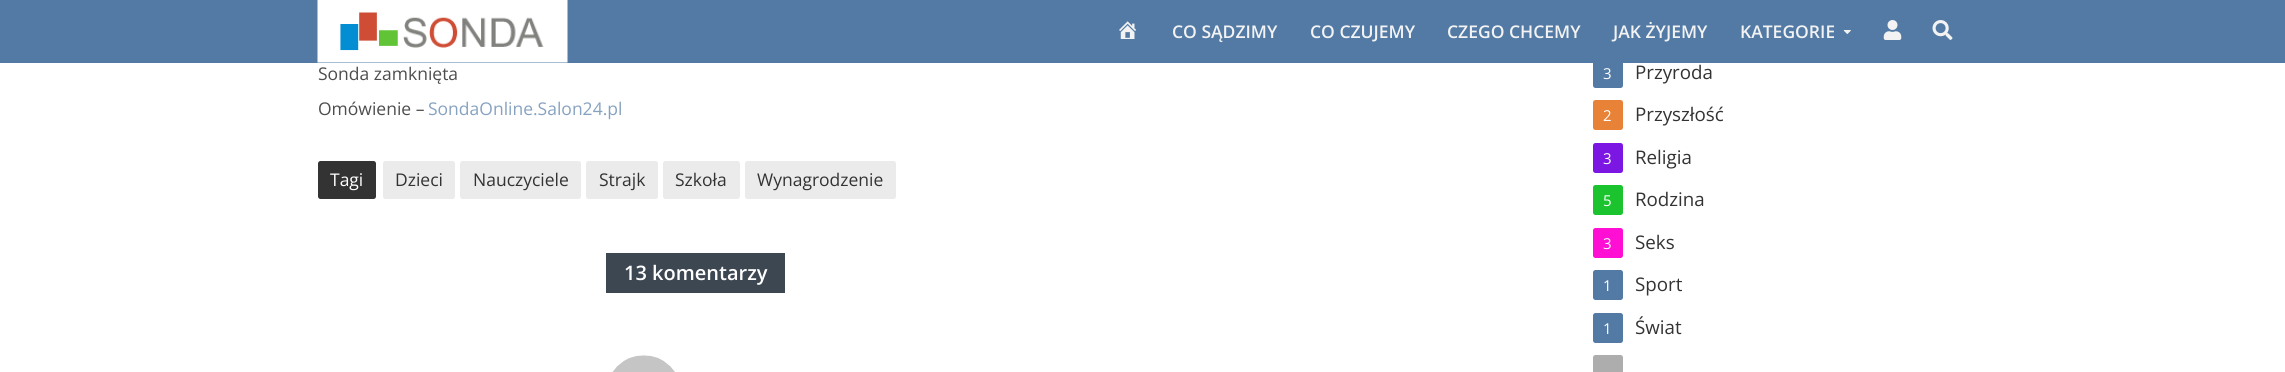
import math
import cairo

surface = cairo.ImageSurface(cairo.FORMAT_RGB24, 2285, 372)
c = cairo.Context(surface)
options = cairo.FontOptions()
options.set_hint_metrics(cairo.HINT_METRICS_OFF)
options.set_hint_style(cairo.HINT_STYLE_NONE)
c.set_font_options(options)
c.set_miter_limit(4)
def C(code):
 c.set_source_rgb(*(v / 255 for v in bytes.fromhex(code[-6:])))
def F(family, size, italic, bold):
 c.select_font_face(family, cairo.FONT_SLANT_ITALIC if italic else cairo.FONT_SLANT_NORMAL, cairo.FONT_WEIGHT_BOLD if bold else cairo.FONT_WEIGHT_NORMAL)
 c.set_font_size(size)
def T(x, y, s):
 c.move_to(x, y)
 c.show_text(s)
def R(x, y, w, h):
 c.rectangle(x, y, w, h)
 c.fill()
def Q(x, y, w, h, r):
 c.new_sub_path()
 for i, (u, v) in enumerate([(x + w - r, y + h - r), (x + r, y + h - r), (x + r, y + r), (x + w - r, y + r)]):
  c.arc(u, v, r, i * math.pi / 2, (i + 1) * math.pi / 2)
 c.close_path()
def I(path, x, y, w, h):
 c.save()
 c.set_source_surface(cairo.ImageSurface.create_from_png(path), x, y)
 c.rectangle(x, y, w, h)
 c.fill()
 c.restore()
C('ffffff')
c.paint()
C('527aa5')
Q(1593,58,30,30,2.5)
c.fill()
R(0,0,2285,63)
I('1.png',317,0,251,63)
I('2.png',1119,21,18,18)
F('Open Sans SemiBold',17.5,0,0)
C('f3f3f3')
T(1172,38,'CO SĄDZIMY')
T(1310,38,'CO CZUJEMY')
T(1447,38,'CZEGO CHCEMY')
T(1613,38,'JAK ŻYJEMY')
T(1740,38,'KATEGORIE')
I('3.png',1843,30,8,4)
I('4.png',1883,20,19,20)
I('5.png',1932,20,21,20)
F('Open Sans',17.5,0,0)
C('4d4d4d')
T(318,80,'Sonda zamknięta')
T(318,115,'Omówienie –')
C('86a2c0')
T(428,115,'SondaOnline.Salon24.pl')
C('333333')
Q(318,161,58,38,2.5)
c.fill()
C('ffffff')
T(330,186,'Tagi')
C('ebebeb')
Q(383,161,72,38,2.5)
c.fill()
C('333333')
T(395,186,'Dzieci')
C('ebebeb')
Q(460,161,121,38,2.5)
c.fill()
C('333333')
T(473,186,'Nauczyciele')
C('ebebeb')
Q(586,161,72,38,2.5)
c.fill()
C('333333')
T(599,186,'Strajk')
C('ebebeb')
Q(663,161,77,38,2.5)
c.fill()
C('333333')
T(675,186,'Szkoła')
C('ebebeb')
Q(745,161,151,38,2.5)
c.fill()
C('333333')
T(757,186,'Wynagrodzenie')
C('3d4752')
R(606,253,179,40)
F('Open Sans SemiBold',20,0,0)
C('ffffff')
T(624,280,'13 komentarzy')
I('6.png',612,355,63,17)
F('Open Sans',15,0,0)
T(1603,79,'3')
F('Open Sans',18.75,0,0)
C('333333')
T(1635,79,'Przyroda')
C('e88237')
Q(1593,100,30,30,2.5)
c.fill()
F('Open Sans',15,0,0)
C('ffffff')
T(1603,121,'2')
F('Open Sans',18.75,0,0)
C('333333')
T(1635,121,'Przyszłość')
C('7c16e2')
Q(1593,143,30,30,2.5)
c.fill()
F('Open Sans',15,0,0)
C('ffffff')
T(1603,164,'3')
F('Open Sans',18.75,0,0)
C('333333')
T(1635,164,'Religia')
C('1bc42f')
Q(1593,185,30,30,2.5)
c.fill()
F('Open Sans',15,0,0)
C('ffffff')
T(1603,206,'5')
F('Open Sans',18.75,0,0)
C('333333')
T(1635,206,'Rodzina')
C('ff0fd3')
Q(1593,228,30,30,2.5)
c.fill()
F('Open Sans',15,0,0)
C('ffffff')
T(1603,249,'3')
F('Open Sans',18.75,0,0)
C('333333')
T(1635,249,'Seks')
C('527aa5')
Q(1593,270,30,30,2.5)
c.fill()
F('Open Sans',15,0,0)
C('ffffff')
T(1603,291,'1')
F('Open Sans',18.75,0,0)
C('333333')
T(1635,291,'Sport')
C('527aa5')
Q(1593,313,30,30,2.5)
c.fill()
F('Open Sans',15,0,0)
C('ffffff')
T(1603,334,'1')
F('Open Sans',18.75,0,0)
C('333333')
T(1635,334,'Świat')
C('adadad')
Q(1593,355,30,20,2.5)
c.fill()
surface.write_to_png('o.png')
